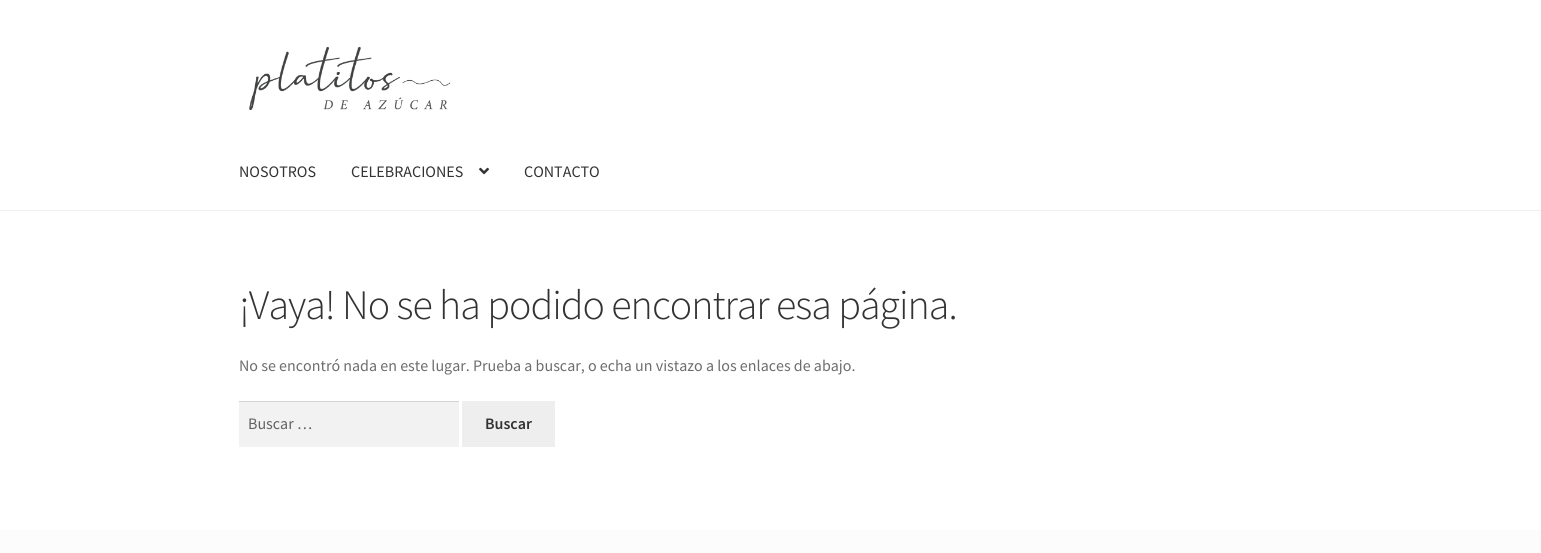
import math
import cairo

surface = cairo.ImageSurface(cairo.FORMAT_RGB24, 1541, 553)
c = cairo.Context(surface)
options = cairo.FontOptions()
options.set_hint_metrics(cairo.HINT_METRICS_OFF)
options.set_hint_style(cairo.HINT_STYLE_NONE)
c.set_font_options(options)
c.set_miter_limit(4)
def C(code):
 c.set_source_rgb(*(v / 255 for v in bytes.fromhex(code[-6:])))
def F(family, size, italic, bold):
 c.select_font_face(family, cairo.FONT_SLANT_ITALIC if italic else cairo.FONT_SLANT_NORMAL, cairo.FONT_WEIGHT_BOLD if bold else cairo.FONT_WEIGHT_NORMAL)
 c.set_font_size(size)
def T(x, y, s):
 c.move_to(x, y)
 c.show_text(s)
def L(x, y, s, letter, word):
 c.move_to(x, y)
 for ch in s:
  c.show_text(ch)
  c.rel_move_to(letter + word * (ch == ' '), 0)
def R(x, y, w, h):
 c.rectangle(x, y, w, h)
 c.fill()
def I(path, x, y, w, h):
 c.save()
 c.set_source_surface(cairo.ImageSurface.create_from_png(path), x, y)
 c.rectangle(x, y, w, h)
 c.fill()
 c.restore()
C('ffffff')
c.paint()
C('f0f0f0')
R(0,210,1541,1)
I('1.png',249,46,202,64)
F('Source Sans Pro',16,0,0)
C('333333')
T(239,177,'NOSOTROS')
T(351,177,'CELEBRACIONES')
I('2.png',479,167,10,8)
T(524,177,'CONTACTO')
F('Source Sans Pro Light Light',41.9,0,0)
L(239,319,'¡Vaya! No se ha podido encontrar esa página.',-1,0)
F('Source Sans Pro',16,0,0)
C('6d6d6d')
T(239,371,'No se encontró nada en este lugar. Prueba a buscar, o echa un vistazo a los enlaces de abajo.')
C('f2f2f2')
R(239,402,220,45)
C('d4d4d4')
R(239,401,220,1)
C('616161')
T(248,429,'Buscar …')
C('eeeeee')
R(462,401,93,46)
F('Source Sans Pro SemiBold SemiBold',16,0,0)
C('333333')
T(485,429,'Buscar')
C('fcfcfc')
R(0,530,1541,23)
surface.write_to_png('o.png')
